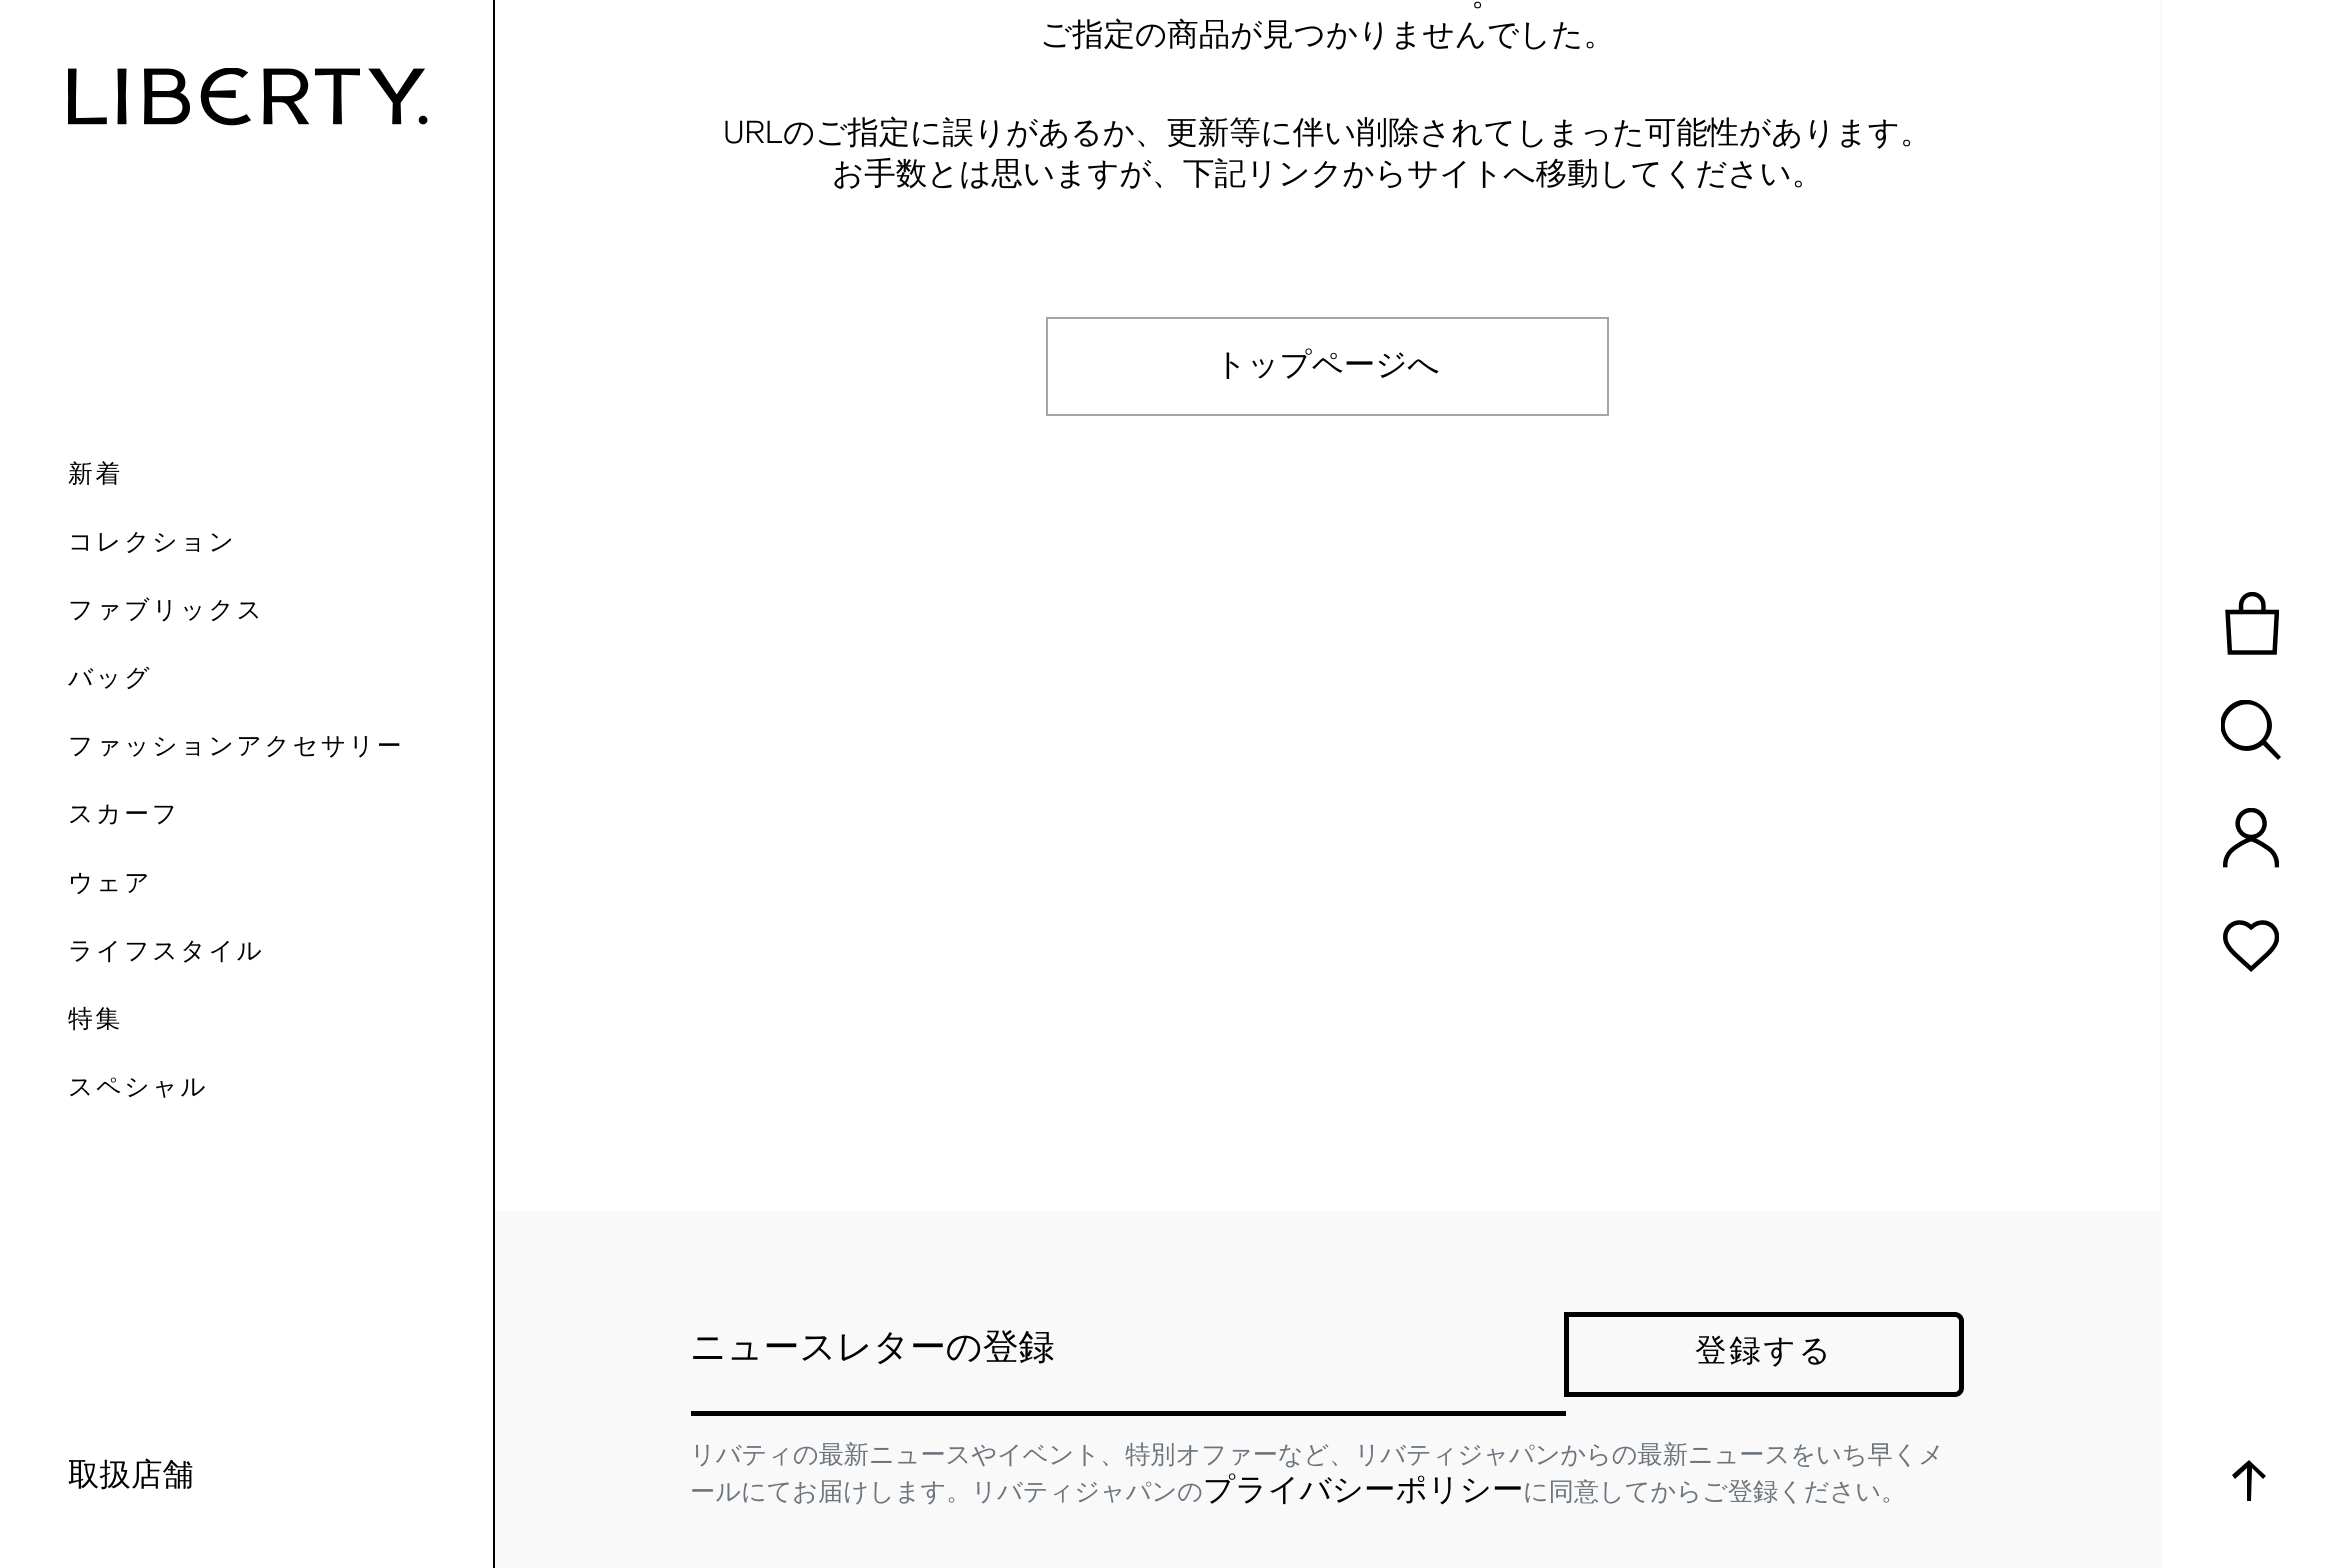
import math
import cairo

surface = cairo.ImageSurface(cairo.FORMAT_RGB24, 2338, 1568)
c = cairo.Context(surface)
options = cairo.FontOptions()
options.set_hint_metrics(cairo.HINT_METRICS_OFF)
options.set_hint_style(cairo.HINT_STYLE_NONE)
c.set_font_options(options)
c.set_miter_limit(4)
def C(code):
 c.set_source_rgb(*(v / 255 for v in bytes.fromhex(code[-6:])))
def F(family, size, italic, bold):
 c.select_font_face(family, cairo.FONT_SLANT_ITALIC if italic else cairo.FONT_SLANT_NORMAL, cairo.FONT_WEIGHT_BOLD if bold else cairo.FONT_WEIGHT_NORMAL)
 c.set_font_size(size)
def L(x, y, s, letter, word):
 c.move_to(x, y)
 for ch in s:
  c.show_text(ch)
  c.rel_move_to(letter + word * (ch == ' '), 0)
def R(x, y, w, h):
 c.rectangle(x, y, w, h)
 c.fill()
def I(path, x, y, w, h):
 c.save()
 c.set_source_surface(cairo.ImageSurface.create_from_png(path), x, y)
 c.rectangle(x, y, w, h)
 c.fill()
 c.restore()
C('ffffff')
c.paint()
F('WenQuanYi Zen Hei Medium',31.5,0,0)
C('000000')
L(1471,5,'。',-.05,0)
L(1040,45,'ご指定の商品が見つかりませんでした。',-.05,0)
F('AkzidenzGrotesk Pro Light',31.5,0,0)
L(723,143,'URL',-.05,0)
F('WenQuanYi Zen Hei Medium',31.5,0,0)
L(783,143,'のご指定に誤りがあるか、更新等に伴い削除されてしまった可能性があります。',-.05,0)
L(832,184,'お手数とは思いますが、下記リンクからサイトへ移動してください。',-.05,0)
c.rectangle(1047,318,561,97)
C('a5a5a5')
c.stroke()
C('000000')
L(1215,375,'トップページへ',-.05,0)
C('f9f9f9')
R(2160,0,2,1568)
I('1.png',2225,592,54,63)
c.save()
c.rectangle(2221,700,61,61)
c.clip()
C('000000')
c.new_path()
c.move_to(2266,741)
c.curve_to(2286,717,2251,685,2228,707)
c.curve_to(2205,730,2238,765,2263,745)
c.line_to(2278,760)
c.line_to(2281,757)
c.close_path()
c.move_to(2246,746)
c.curve_to(2239,746,2232,742,2228,736)
c.curve_to(2215,715,2245,693,2262,711)
c.curve_to(2265,715,2267,720,2267,725)
c.curve_to(2267,737,2258,746,2246,746)
c.close_path()
c.fill()
c.restore()
I('2.png',2223,808,56,60)
I('3.png',2223,920,56,52)
C('000000')
c.new_path()
c.move_to(2251,1462)
c.line_to(2266,1476)
c.line_to(2263,1479)
c.line_to(2252,1468)
c.line_to(2251,1501)
c.line_to(2247,1501)
c.line_to(2247,1468)
c.line_to(2235,1479)
c.line_to(2232,1475)
c.line_to(2249,1460)
c.close_path()
c.fill()
I('4.png',68,68,360,58)
R(493,0,2,1568)
F('WenQuanYi Zen Hei Medium',24.75,0,0)
L(68,482,'新着',2.75,0)
L(68,550,'コレクション',2.75,0)
L(68,618,'ファブリックス',2.75,0)
L(68,686,'バッグ',2.75,0)
L(68,754,'ファッションアクセサリー',2.75,0)
L(68,822,'スカーフ',2.75,0)
L(68,891,'ウェア',2.75,0)
L(68,959,'ライフスタイル',2.75,0)
L(68,1027,'特集',2.75,0)
L(68,1095,'スペシャル',2.75,0)
F('WenQuanYi Zen Hei Medium',31.5,0,0)
L(68,1485,'取扱店舗',-.05,0)
C('f9f9f9')
R(495,1211,1665,357)
F('WenQuanYi Zen Hei Medium',36,0,0)
C('000000')
L(690,1359,'ニュースレターの登録',-.05,0)
c.new_path()
c.move_to(1566.5,1314.5)
c.line_to(1955,1314.5)
c.curve_to(1958.5,1314.5,1961.5,1317.5,1961.5,1321)
c.line_to(1961.5,1388)
c.curve_to(1961.5,1391.5,1958.5,1394.5,1955,1394.5)
c.line_to(1566.5,1394.5)
c.close_path()
c.set_line_width(5)
c.stroke()
F('WenQuanYi Zen Hei Medium',31.5,0,0)
L(1695,1361,'登録する',2.75,0)
R(691,1411,875,5)
F('WenQuanYi Zen Hei Medium',25.2,0,0)
C('6c757d')
L(690,1463,'リバティの最新ニュースやイベント、特別オファーなど、リバティジャパンからの最新ニュースをいち早くメ',-.05,0)
L(690,1500,'ールにてお届けします。リバティジャパンの',-.05,0)
F('WenQuanYi Zen Hei Medium',31.5,0,0)
C('000000')
L(1203,1500,'プライバシーポリシー',-.05,0)
F('WenQuanYi Zen Hei Medium',25.2,0,0)
C('6c757d')
L(1523,1500,'に同意してからご登録ください。',-.05,0)
surface.write_to_png('o.png')
